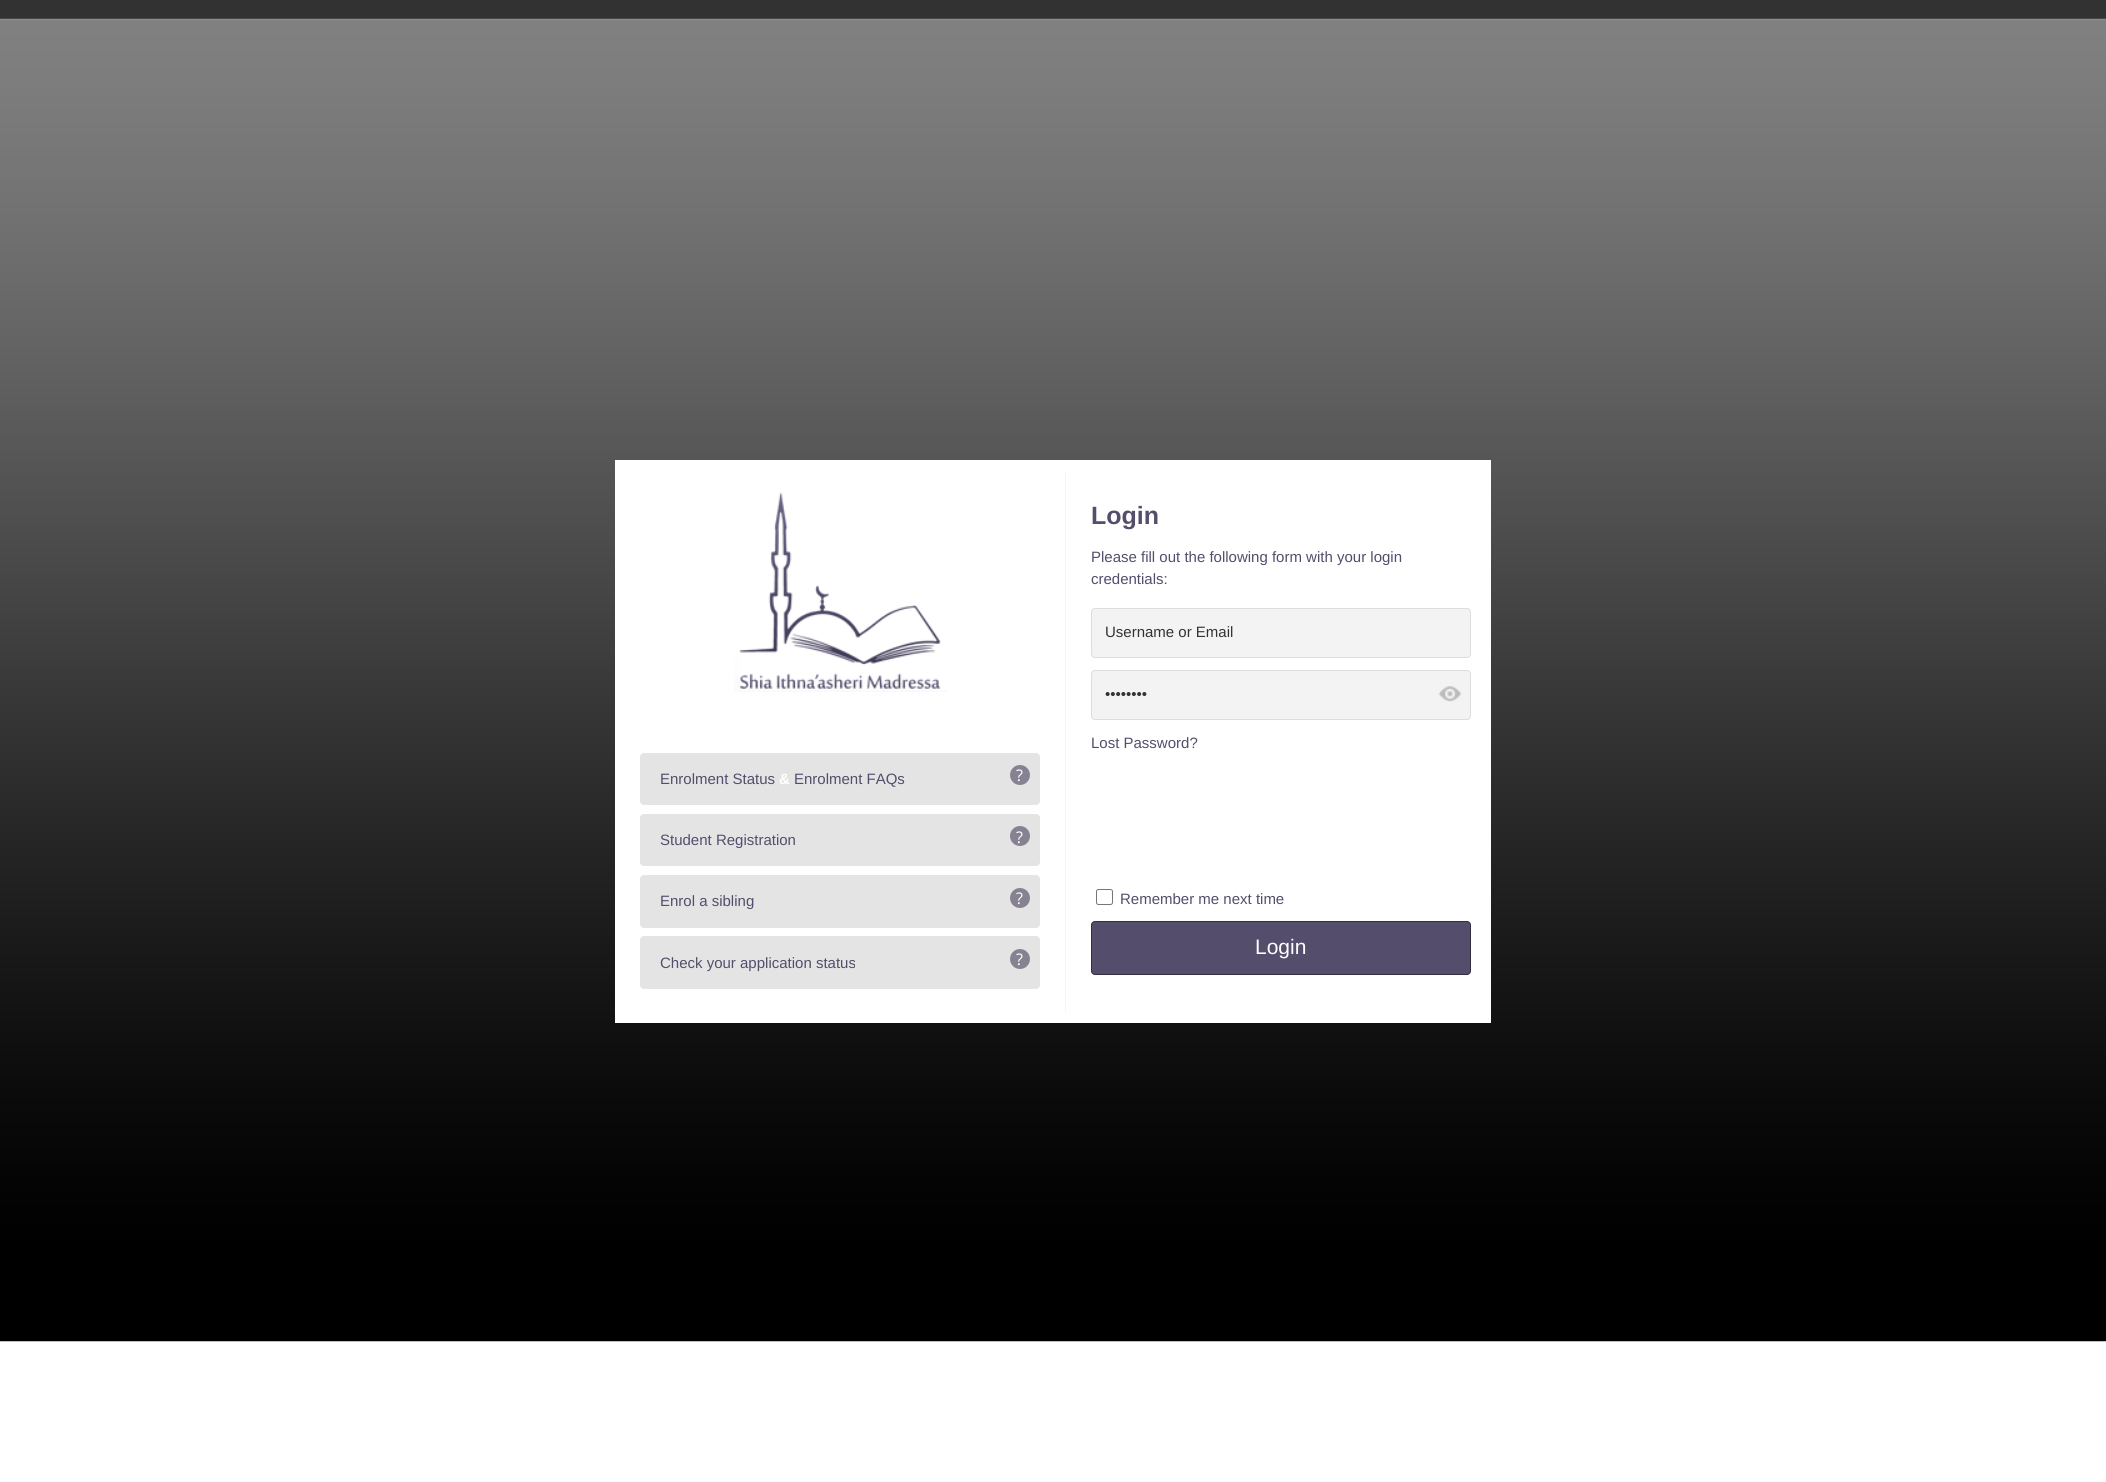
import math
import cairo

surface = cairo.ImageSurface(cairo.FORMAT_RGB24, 2106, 1482)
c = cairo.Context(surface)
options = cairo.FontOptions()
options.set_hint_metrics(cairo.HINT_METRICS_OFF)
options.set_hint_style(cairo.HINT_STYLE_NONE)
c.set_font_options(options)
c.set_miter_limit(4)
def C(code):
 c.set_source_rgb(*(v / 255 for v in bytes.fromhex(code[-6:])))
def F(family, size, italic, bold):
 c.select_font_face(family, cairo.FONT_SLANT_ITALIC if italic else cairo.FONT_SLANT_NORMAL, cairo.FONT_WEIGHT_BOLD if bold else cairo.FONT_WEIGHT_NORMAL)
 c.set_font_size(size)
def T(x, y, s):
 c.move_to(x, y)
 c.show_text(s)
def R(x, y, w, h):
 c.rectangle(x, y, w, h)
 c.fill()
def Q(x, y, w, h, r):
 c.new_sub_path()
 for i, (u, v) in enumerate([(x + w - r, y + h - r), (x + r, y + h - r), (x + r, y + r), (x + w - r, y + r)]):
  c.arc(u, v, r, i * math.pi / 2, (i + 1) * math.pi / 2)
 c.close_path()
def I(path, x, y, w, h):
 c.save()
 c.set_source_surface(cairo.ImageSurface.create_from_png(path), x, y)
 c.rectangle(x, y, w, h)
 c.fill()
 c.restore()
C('ffffff')
c.paint()
I('1.png',0,0,2106,1342)
C('ffffff')
R(615,460,876,563)
I('2.png',734,492,213,200)
C('e4e4e4')
Q(640,753,400,52,4)
c.fill()
F('Liberation Sans',15,0,0)
C('554d6c')
T(660,784,'Enrolment Status')
F('Liberation Sans',15,0,1)
C('ffffff')
T(779,784,'&')
F('Liberation Sans',15,0,0)
C('554d6c')
T(794,784,'Enrolment FAQs')
C('868292')
c.new_path()
c.arc(1020,775,10,0,2 * math.pi)
c.fill()
F('Open Sans',16,0,0)
C('ffffff')
T(1016,781,'?')
C('e4e4e4')
Q(640,814,400,52,4)
c.fill()
F('Liberation Sans',15,0,0)
C('554d6c')
T(660,845,'Student Registration')
C('868292')
c.new_path()
c.arc(1020,836,10,0,2 * math.pi)
c.fill()
F('Open Sans',16,0,0)
C('ffffff')
T(1016,843,'?')
C('e4e4e4')
Q(640,875,400,53,4)
c.fill()
F('Liberation Sans',15,0,0)
C('554d6c')
T(660,906,'Enrol a sibling')
C('868292')
c.new_path()
c.arc(1020,898,10,0,2 * math.pi)
c.fill()
F('Open Sans',16,0,0)
C('ffffff')
T(1016,904,'?')
C('e4e4e4')
Q(640,936,400,53,4)
c.fill()
F('Liberation Sans',15,0,0)
C('554d6c')
T(660,968,'Check your application status')
C('868292')
c.new_path()
c.arc(1020,959,10,0,2 * math.pi)
c.fill()
F('Open Sans',16,0,0)
C('ffffff')
T(1016,965,'?')
C('f5f5f5')
R(1065,471,1,542)
F('Liberation Sans',25,0,1)
C('554d6c')
T(1091,524,'Login')
F('Liberation Sans',15,0,0)
T(1091,562,'Please fill out the following form with your login')
T(1091,584,'credentials:')
C('f3f3f3')
Q(1091.5,608.5,379,49,3.5)
c.fill_preserve()
C('dddddd')
c.set_line_width(1)
c.stroke()
C('333333')
T(1105,637,'Username or Email')
C('f3f3f3')
Q(1091.5,670.5,379,49,3.5)
c.fill_preserve()
C('dddddd')
c.stroke()
C('333333')
T(1105,699,'••••••••')
I('3.png',1438,686,24,16)
C('554d6c')
T(1091,748,'Lost Password?')
Q(1096.5,889.5,16,15,2)
C('767676')
c.stroke()
C('554d6c')
T(1120,904,'Remember me next time')
Q(1091.5,921.5,379,53,3.5)
c.fill_preserve()
C('332e42')
c.stroke()
F('Liberation Sans',21,0,0)
C('ffffff')
T(1255,954,'Login')
surface.write_to_png('o.png')
